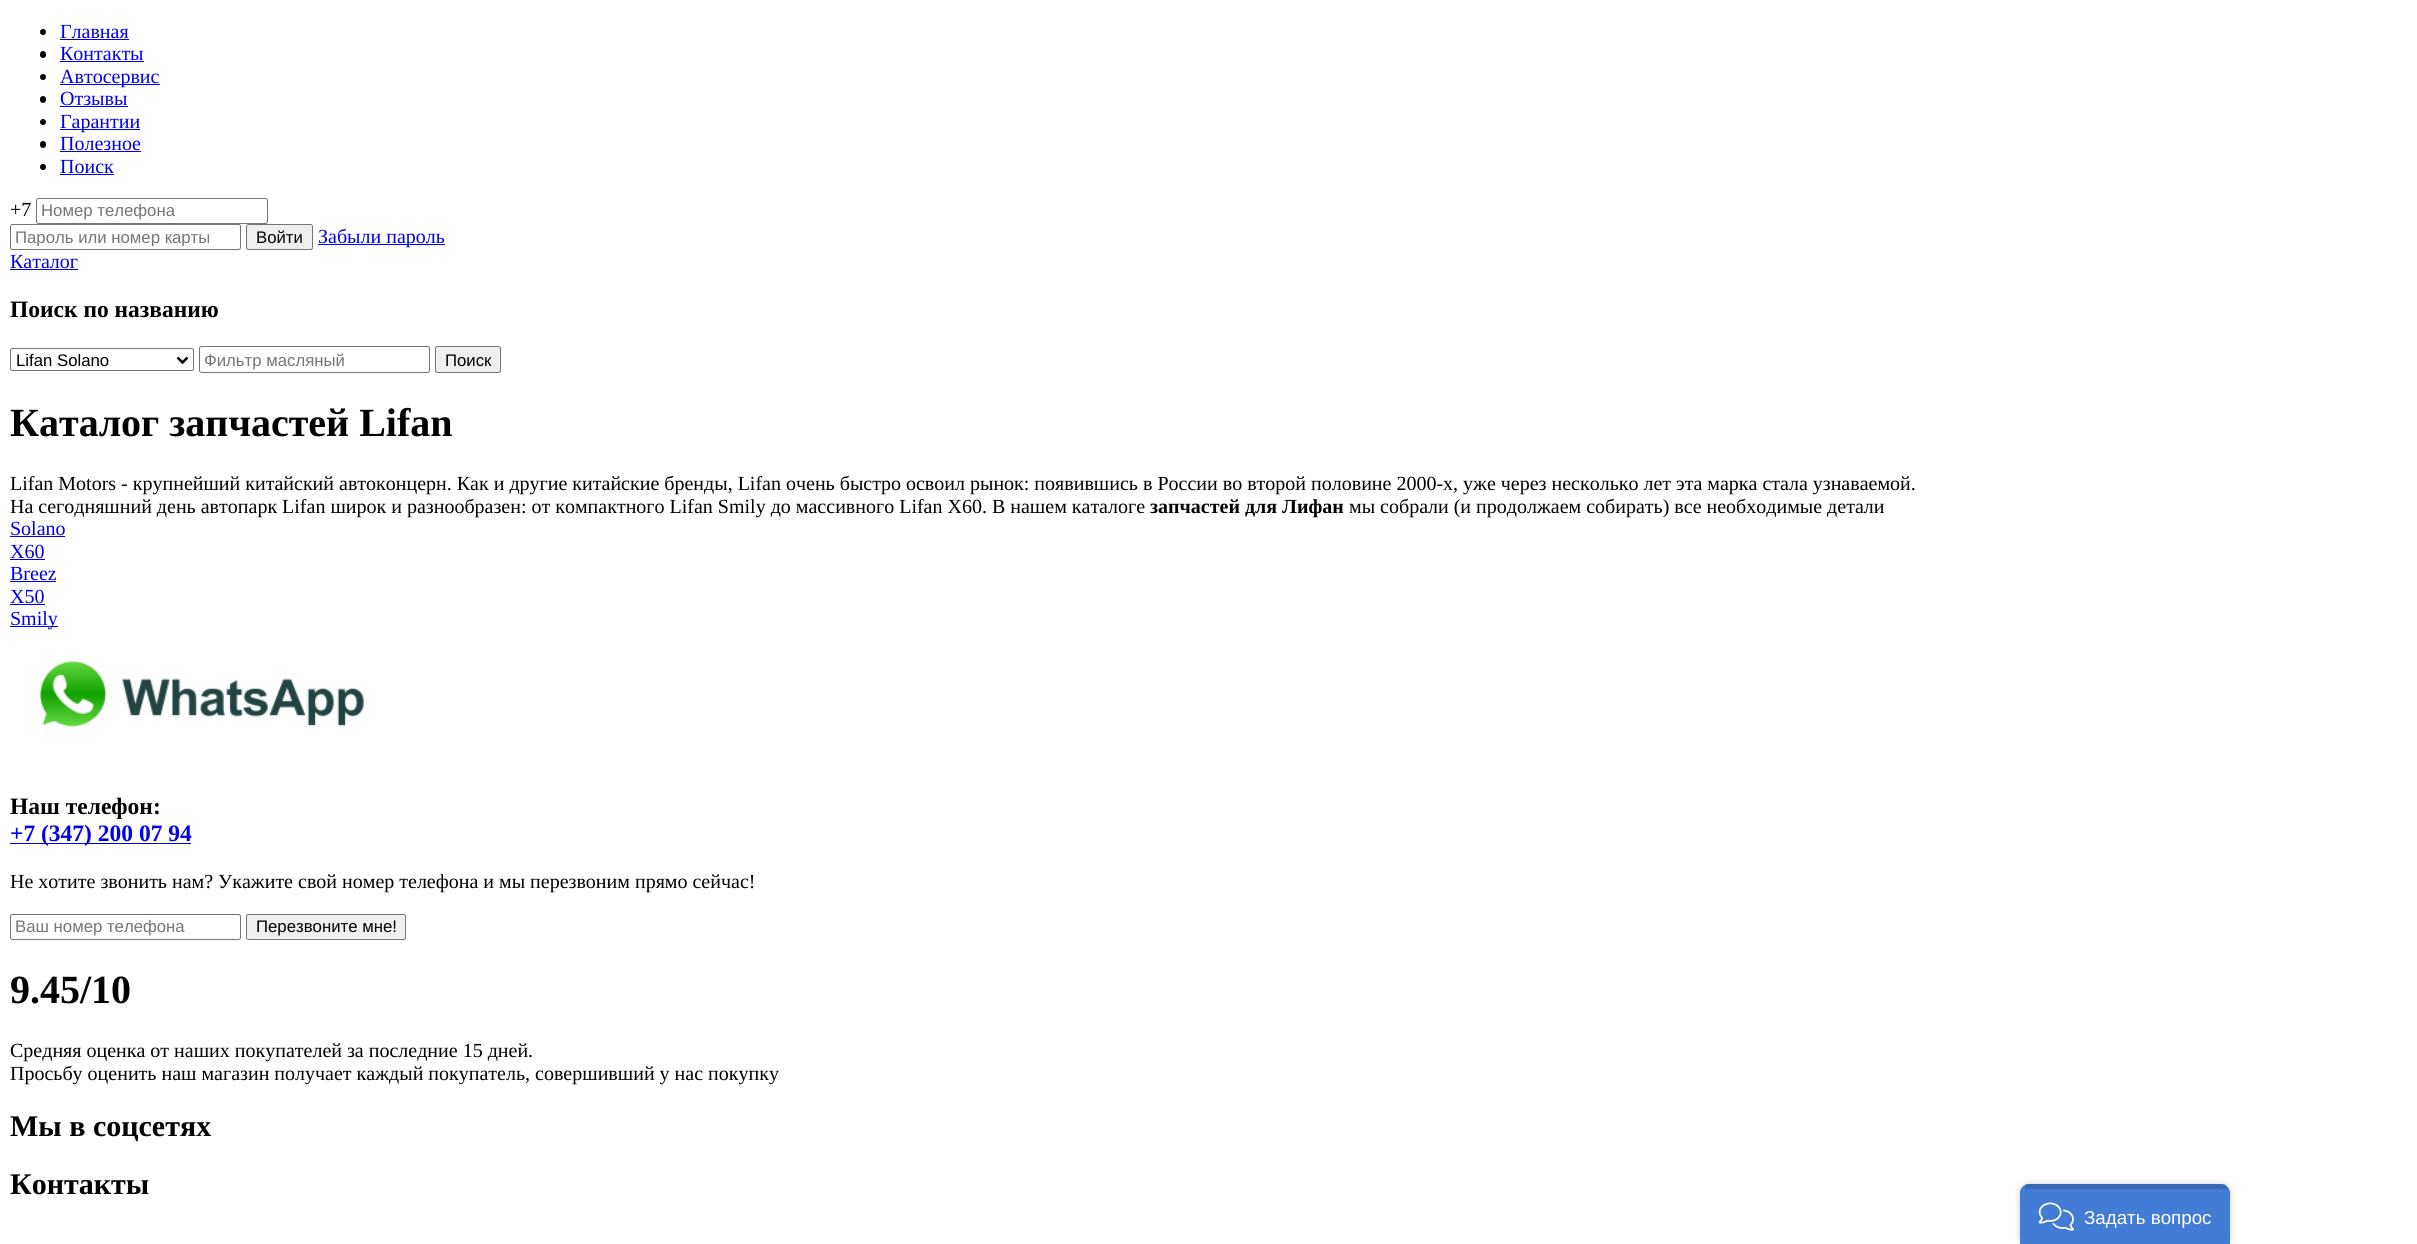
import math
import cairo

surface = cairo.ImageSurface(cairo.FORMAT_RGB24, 2417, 1244)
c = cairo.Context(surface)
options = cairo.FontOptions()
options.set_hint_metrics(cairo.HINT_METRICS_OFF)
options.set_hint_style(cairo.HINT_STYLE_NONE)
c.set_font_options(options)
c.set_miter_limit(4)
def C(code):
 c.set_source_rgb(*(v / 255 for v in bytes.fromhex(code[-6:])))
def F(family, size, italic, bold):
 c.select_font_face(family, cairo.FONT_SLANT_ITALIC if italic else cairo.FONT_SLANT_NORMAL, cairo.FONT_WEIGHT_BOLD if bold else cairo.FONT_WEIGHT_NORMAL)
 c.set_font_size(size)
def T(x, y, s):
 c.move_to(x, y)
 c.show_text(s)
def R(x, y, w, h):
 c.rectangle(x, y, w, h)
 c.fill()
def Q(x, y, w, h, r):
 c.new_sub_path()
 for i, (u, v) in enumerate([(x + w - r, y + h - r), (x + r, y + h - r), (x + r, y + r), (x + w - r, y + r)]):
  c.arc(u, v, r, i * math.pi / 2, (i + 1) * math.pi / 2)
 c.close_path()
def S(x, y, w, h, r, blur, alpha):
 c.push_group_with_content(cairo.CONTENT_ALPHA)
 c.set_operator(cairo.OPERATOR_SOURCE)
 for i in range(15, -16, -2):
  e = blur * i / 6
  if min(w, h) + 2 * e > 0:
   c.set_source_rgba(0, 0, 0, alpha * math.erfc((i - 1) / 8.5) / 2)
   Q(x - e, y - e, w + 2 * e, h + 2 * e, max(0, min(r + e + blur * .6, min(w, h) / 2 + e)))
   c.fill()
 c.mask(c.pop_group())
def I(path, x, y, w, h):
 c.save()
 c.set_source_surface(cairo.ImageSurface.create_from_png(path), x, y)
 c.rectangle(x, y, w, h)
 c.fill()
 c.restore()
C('ffffff')
c.paint()
C('000000')
c.arc(43,32,3,0,2 * math.pi)
c.fill()
F('Liberation Serif',20,0,0)
C('0000ee')
T(60,38,'Главная')
R(60,39,69,1)
C('000000')
Q(40,51,6,7,3)
c.fill()
C('0000ee')
T(60,60,'Контакты')
R(60,61,84,1)
C('000000')
c.new_path()
c.arc(43,77,3,0,2 * math.pi)
c.fill()
C('0000ee')
R(60,84,100,1)
T(60,83,'Автосервис')
C('000000')
Q(40,96,6,7,3)
c.fill()
C('0000ee')
T(60,105,'Отзывы')
R(60,106,68,1)
C('000000')
c.new_path()
c.arc(43,122,3,0,2 * math.pi)
c.fill()
C('0000ee')
R(60,129,80,1)
T(60,128,'Гарантии')
C('000000')
Q(40,141,6,7,3)
c.fill()
C('0000ee')
T(60,150,'Полезное')
R(60,151,81,1)
C('000000')
c.new_path()
c.arc(43,167,3,0,2 * math.pi)
c.fill()
C('0000ee')
T(60,173,'Поиск')
R(60,174,54,1)
C('000000')
T(10,216,'+7')
Q(36.5,198.5,231,25,2)
C('767676')
c.set_line_width(1)
c.stroke()
F('Liberation Sans',16.75,0,0)
C('757575')
T(41,216,'Номер телефона')
Q(10.5,224.5,230,25,2)
C('767676')
c.stroke()
c.save()
c.rectangle(15,228,221,18)
c.clip()
C('757575')
T(15,243,'Пароль или номер карты')
c.restore()
C('efefef')
Q(246.5,224.5,66,25,2)
c.fill_preserve()
C('767676')
c.stroke()
C('000000')
T(256,243,'Войти')
C('0000ee')
R(318,244,127,1)
F('Liberation Serif',20,0,0)
T(318,243,'Забыли пароль')
T(10,268,'Каталог')
R(10,269,68,1)
F('Liberation Serif',23.5,0,1)
C('000000')
T(10,317,'Поиск по названию')
Q(10.5,348.5,183,22,2)
C('767676')
c.stroke()
c.new_path()
c.move_to(177.5,357.5)
c.line_to(182.5,362.5)
c.line_to(187.5,357.5)
C('000000')
c.set_line_width(2.5)
c.stroke()
F('Liberation Sans',16.75,0,0)
T(16,366,'Lifan Solano')
Q(199.5,346.5,230,26,2)
C('767676')
c.set_line_width(1)
c.stroke()
C('757575')
T(204,366,'Фильтр масляный')
C('efefef')
Q(435.5,346.5,65,26,2)
c.fill_preserve()
C('767676')
c.stroke()
C('000000')
T(445,366,'Поиск')
F('Liberation Serif',40,0,1)
T(10,436,'Каталог запчастей Lifan')
F('Liberation Serif',20,0,0)
T(10,490,'Lifan Motors - крупнейший китайский автоконцерн. Как и другие китайские бренды, Lifan очень быстро освоил рынок: появившись в России во второй половине 2000-х, уже через несколько лет эта марка стала узнаваемой.')
T(10,513,'На сегодняшний день автопарк Lifan широк и разнообразен: от компактного Lifan Smily до массивного Lifan X60. В нашем каталоге')
F('Liberation Serif',20,0,1)
T(1150,513,'запчастей для Лифан')
F('Liberation Serif',20,0,0)
T(1349,513,'мы собрали (и продолжаем собирать) все необходимые детали')
C('0000ee')
T(10,535,'Solano')
R(10,536,55,1)
T(10,558,'X60')
R(10,559,35,1)
T(10,580,'Breez')
R(10,581,46,1)
T(10,603,'X50')
R(10,604,35,1)
R(10,626,48,1)
T(10,625,'Smily')
I('1.png',39,661,325,66)
F('Liberation Serif',23.5,0,1)
C('000000')
T(10,814,'Наш телефон:')
C('0000ee')
R(10,843,181,1)
T(10,841,'+7 (347) 200 07 94')
F('Liberation Serif',20,0,0)
C('000000')
T(10,888,'Не хотите звонить нам? Укажите свой номер телефона и мы перезвоним прямо сейчас!')
Q(10.5,914.5,230,25,2)
C('767676')
c.stroke()
F('Liberation Sans',16.75,0,0)
C('757575')
T(15,932,'Ваш номер телефона')
C('efefef')
Q(246.5,914.5,159,25,2)
c.fill_preserve()
C('767676')
c.stroke()
C('000000')
T(256,932,'Перезвоните мне!')
F('Liberation Serif',40,0,1)
T(10,1003,'9.45/10')
F('Liberation Serif',20,0,0)
T(10,1057,'Средняя оценка от наших покупателей за последние 15 дней.')
T(10,1080,'Просьбу оценить наш магазин получает каждый покупатель, совершивший у нас покупку')
F('Liberation Serif',30,0,1)
T(10,1136,'Мы в соцсетях')
T(10,1194,'Контакты')
C('000000')
S(2020,1184,210,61,9,3,.2)
C('427cd4')
c.new_path()
c.move_to(2029,1184)
c.line_to(2221,1184)
c.curve_to(2226,1184,2230,1188,2230,1193)
c.line_to(2230,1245)
c.line_to(2020,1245)
c.line_to(2020,1193)
c.curve_to(2020,1188,2024,1184,2029,1184)
c.close_path()
c.fill()
c.set_source_rgba(0,0,0,0.15)
R(2025,1184,201,5)
I('2.png',2038,1202,36,29)
F('Liberation Sans',18.75,0,0)
C('ffffff')
T(2084,1224,'Задать вопрос')
surface.write_to_png('o.png')
